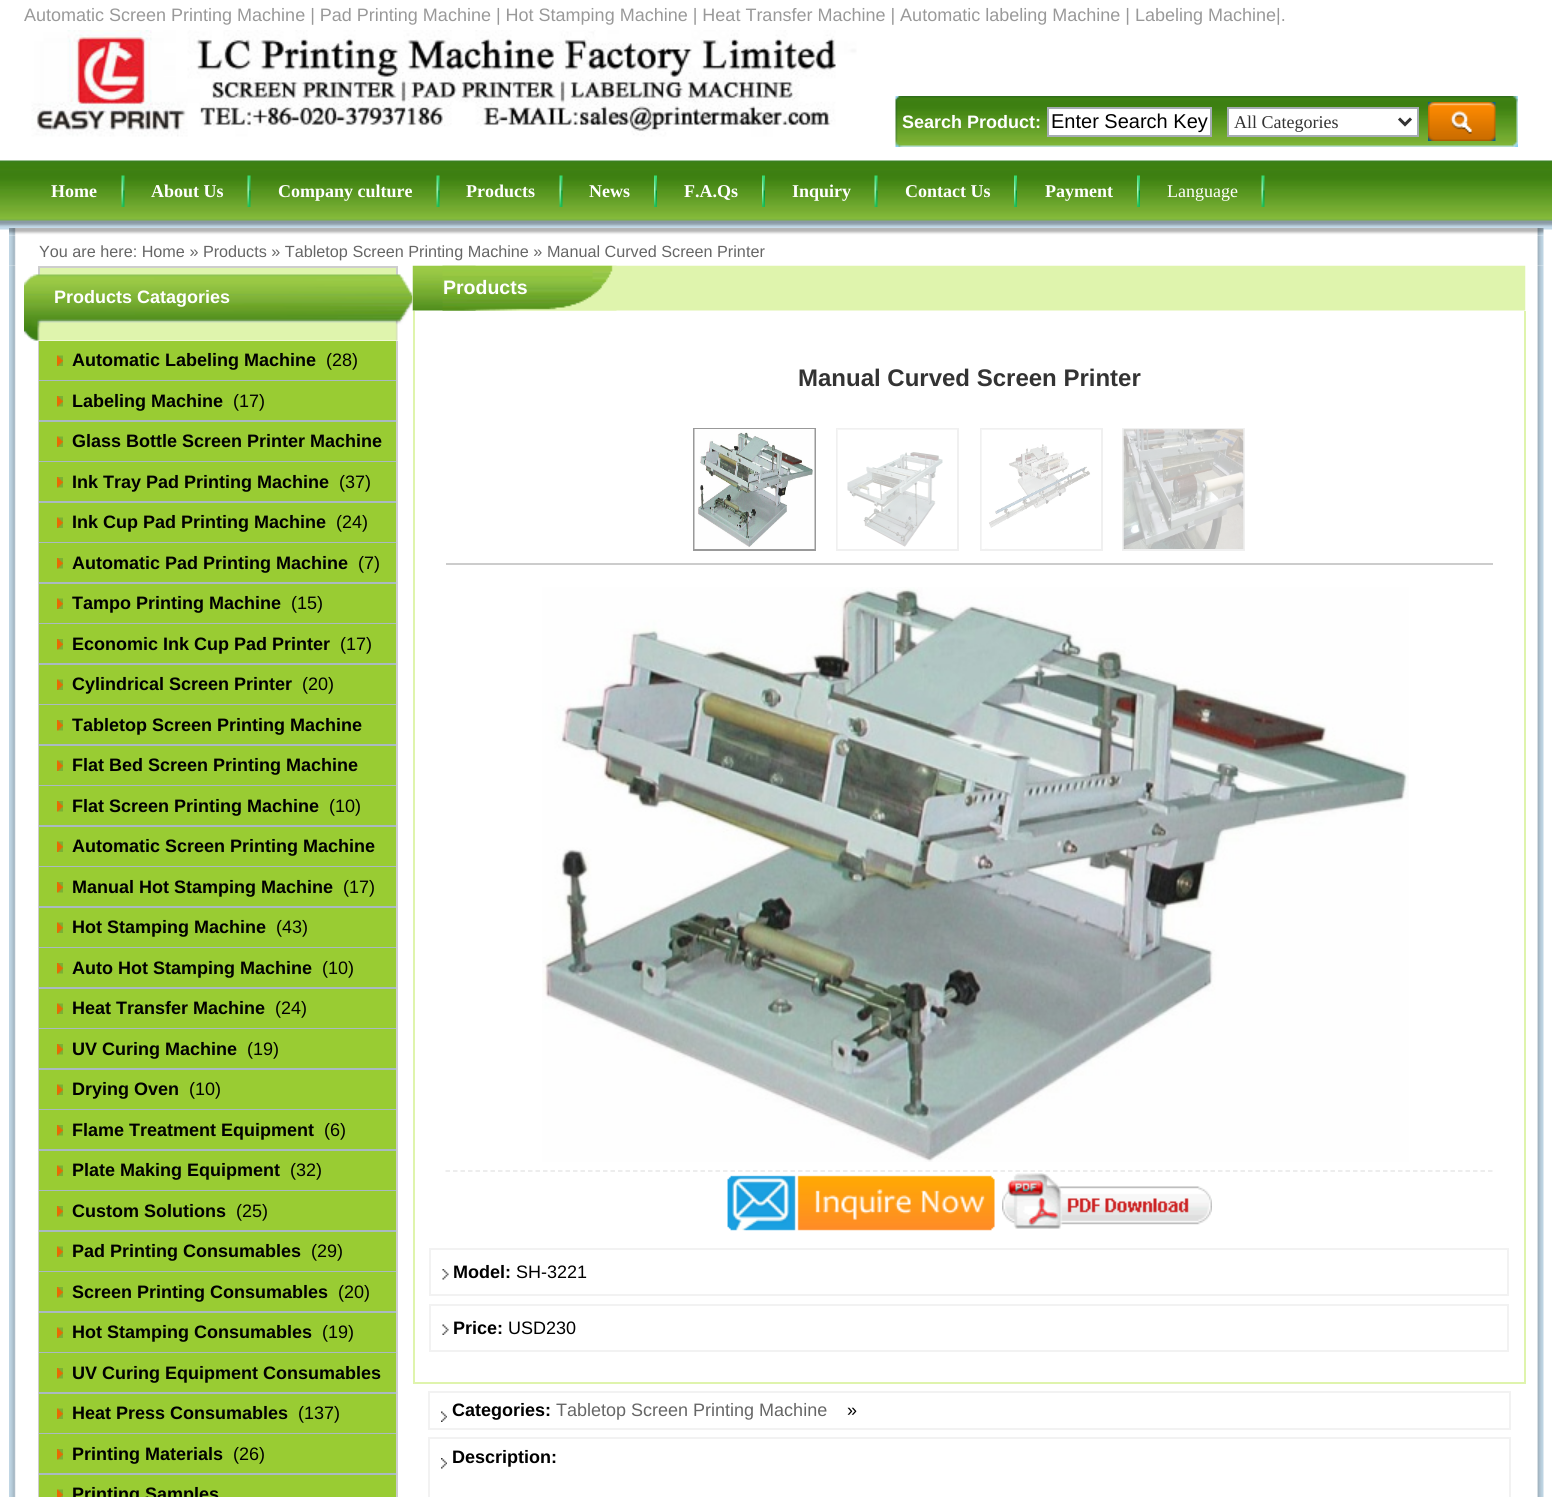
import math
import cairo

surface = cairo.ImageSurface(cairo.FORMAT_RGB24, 1552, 1497)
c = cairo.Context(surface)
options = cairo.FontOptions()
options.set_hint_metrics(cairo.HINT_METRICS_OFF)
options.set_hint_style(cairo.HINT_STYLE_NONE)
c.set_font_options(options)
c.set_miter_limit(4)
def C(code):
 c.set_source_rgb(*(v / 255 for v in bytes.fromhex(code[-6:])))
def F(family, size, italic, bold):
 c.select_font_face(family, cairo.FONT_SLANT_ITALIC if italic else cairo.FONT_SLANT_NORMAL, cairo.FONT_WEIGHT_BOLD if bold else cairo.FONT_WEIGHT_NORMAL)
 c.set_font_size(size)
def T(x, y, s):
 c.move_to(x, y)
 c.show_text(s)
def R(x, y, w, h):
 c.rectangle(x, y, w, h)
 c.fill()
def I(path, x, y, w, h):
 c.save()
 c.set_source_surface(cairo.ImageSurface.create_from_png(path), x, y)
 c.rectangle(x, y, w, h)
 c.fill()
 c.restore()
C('ffffff')
c.paint()
I('1.png',0,160,1552,70)
F('Liberation Sans',18,0,0)
C('999999')
T(24,21,'Automatic Screen Printing Machine | Pad Printing Machine | Hot Stamping Machine | Heat Transfer Machine | Automatic labeling Machine | Labeling Machine|.')
I('2.png',31,30,826,107)
I('3.png',895,96,623,51)
F('Liberation Sans',18,0,1)
C('ffffff')
T(902,128,'Search Product:')
c.rectangle(1048,108,163,28)
c.fill_preserve()
C('a5acb2')
c.stroke()
F('Liberation Sans',20,0,0)
C('000000')
T(1051,128,'Enter Search Key')
C('ffffff')
c.rectangle(1228,108,190,28)
c.fill_preserve()
C('a5acb2')
c.stroke()
c.new_path()
c.move_to(1399,118.5)
c.line_to(1405,124.5)
c.line_to(1411,118.5)
C('333333')
c.set_line_width(3)
c.stroke()
F('Liberation Serif',18,0,0)
T(1234,128,'All Categories')
I('4.png',1428,102,68,39)
I('5.png',121,175,4,32)
F('Liberation Serif',18,0,1)
C('ffffff')
T(51,197,'Home')
I('5.png',247,175,4,32)
T(151,197,'About Us')
I('5.png',436,175,4,32)
T(278,197,'Company culture')
I('5.png',559,175,4,32)
T(466,197,'Products')
I('6.png',654,175,3,32)
T(589,197,'News')
I('6.png',762,175,3,32)
T(684,197,'F.A.Qs')
I('5.png',874,175,4,32)
T(792,197,'Inquiry')
I('6.png',1014,175,3,32)
T(905,197,'Contact Us')
I('7.png',1137,175,3,32)
T(1045,197,'Payment')
I('5.png',1261,175,4,32)
F('Liberation Serif',18,0,0)
T(1167,197,'Language')
I('9.png',9,235,1535,31)
I('8.png',9,228,1535,8)
F('Liberation Sans',16.2,0,0)
C('666666')
T(39,257,'You are here: Home » Products » Tabletop Screen Printing Machine » Manual Curved Screen Printer')
I('10.png',9,265,1535,1232)
C('dff4ad')
R(40,268,356,7)
C('cdcdcd')
R(38,266,360,2)
R(396,266,2,9)
R(38,266,2,9)
I('11.png',24,274,389,67)
F('Liberation Sans',18,0,1)
C('ffffff')
T(54,303,'Products Catagories')
C('cdcdcd')
R(396,341,2,1156)
R(38,341,1,1156)
C('99cc33')
R(39,341,357,39)
I('12.png',57,355,6,11)
C('aabac2')
R(39,380,357,1)
C('000000')
T(72,366,'Automatic Labeling Machine')
F('Liberation Sans',18,0,0)
T(326,366,'(28)')
C('99cc33')
R(39,381,357,39)
I('13.png',57,396,6,11)
C('aabac2')
R(39,420,357,2)
F('Liberation Sans',18,0,1)
C('000000')
T(72,407,'Labeling Machine')
F('Liberation Sans',18,0,0)
T(233,407,'(17)')
C('99cc33')
R(39,422,357,39)
I('12.png',57,436,6,11)
C('aabac2')
R(39,461,357,1)
F('Liberation Sans',18,0,1)
C('000000')
T(72,447,'Glass Bottle Screen Printer Machine')
C('99cc33')
R(39,462,357,39)
I('13.png',57,477,6,11)
C('aabac2')
R(39,501,357,2)
C('000000')
T(72,488,'Ink Tray Pad Printing Machine')
F('Liberation Sans',18,0,0)
T(339,488,'(37)')
C('99cc33')
R(39,503,357,39)
I('12.png',57,517,6,11)
C('aabac2')
R(39,542,357,1)
F('Liberation Sans',18,0,1)
C('000000')
T(72,528,'Ink Cup Pad Printing Machine')
F('Liberation Sans',18,0,0)
T(336,528,'(24)')
C('99cc33')
R(39,543,357,39)
I('13.png',57,558,6,11)
C('aabac2')
R(39,582,357,2)
F('Liberation Sans',18,0,1)
C('000000')
T(72,569,'Automatic Pad Printing Machine')
F('Liberation Sans',18,0,0)
T(358,569,'(7)')
C('99cc33')
R(39,584,357,39)
I('12.png',57,598,6,11)
C('aabac2')
R(39,623,357,1)
F('Liberation Sans',18,0,1)
C('000000')
T(72,609,'Tampo Printing Machine')
F('Liberation Sans',18,0,0)
T(291,609,'(15)')
C('99cc33')
R(39,624,357,39)
I('13.png',57,639,6,11)
C('aabac2')
R(39,663,357,2)
F('Liberation Sans',18,0,1)
C('000000')
T(72,650,'Economic Ink Cup Pad Printer')
F('Liberation Sans',18,0,0)
T(340,650,'(17)')
C('99cc33')
R(39,665,357,39)
I('12.png',57,679,6,11)
C('aabac2')
R(39,704,357,1)
F('Liberation Sans',18,0,1)
C('000000')
T(72,690,'Cylindrical Screen Printer')
F('Liberation Sans',18,0,0)
T(302,690,'(20)')
C('99cc33')
R(39,705,357,39)
I('13.png',57,720,6,11)
C('aabac2')
R(39,744,357,2)
F('Liberation Sans',18,0,1)
C('000000')
T(72,731,'Tabletop Screen Printing Machine')
C('99cc33')
R(39,746,357,39)
I('12.png',57,760,6,11)
C('aabac2')
R(39,785,357,1)
C('000000')
T(72,771,'Flat Bed Screen Printing Machine')
C('99cc33')
R(39,786,357,39)
I('13.png',57,801,6,11)
C('aabac2')
R(39,825,357,2)
C('000000')
T(72,812,'Flat Screen Printing Machine')
F('Liberation Sans',18,0,0)
T(329,812,'(10)')
C('99cc33')
R(39,827,357,39)
I('12.png',57,841,6,11)
C('aabac2')
R(39,866,357,1)
F('Liberation Sans',18,0,1)
C('000000')
T(72,852,'Automatic Screen Printing Machine')
C('99cc33')
R(39,867,357,39)
I('13.png',57,882,6,11)
C('aabac2')
R(39,906,357,2)
C('000000')
T(72,893,'Manual Hot Stamping Machine')
F('Liberation Sans',18,0,0)
T(343,893,'(17)')
C('99cc33')
R(39,908,357,39)
I('12.png',57,922,6,11)
C('aabac2')
R(39,947,357,1)
F('Liberation Sans',18,0,1)
C('000000')
T(72,933,'Hot Stamping Machine')
F('Liberation Sans',18,0,0)
T(276,933,'(43)')
C('99cc33')
R(39,948,357,39)
I('13.png',57,963,6,11)
C('aabac2')
R(39,987,357,2)
F('Liberation Sans',18,0,1)
C('000000')
T(72,974,'Auto Hot Stamping Machine')
F('Liberation Sans',18,0,0)
T(322,974,'(10)')
C('99cc33')
R(39,989,357,39)
I('12.png',57,1003,6,11)
C('aabac2')
R(39,1028,357,1)
F('Liberation Sans',18,0,1)
C('000000')
T(72,1014,'Heat Transfer Machine')
F('Liberation Sans',18,0,0)
T(275,1014,'(24)')
C('99cc33')
R(39,1029,357,39)
I('13.png',57,1044,6,11)
C('aabac2')
R(39,1068,357,2)
F('Liberation Sans',18,0,1)
C('000000')
T(72,1055,'UV Curing Machine')
F('Liberation Sans',18,0,0)
T(247,1055,'(19)')
C('99cc33')
R(39,1070,357,39)
I('12.png',57,1084,6,11)
C('aabac2')
R(39,1109,357,1)
F('Liberation Sans',18,0,1)
C('000000')
T(72,1095,'Drying Oven')
F('Liberation Sans',18,0,0)
T(189,1095,'(10)')
C('99cc33')
R(39,1110,357,39)
I('13.png',57,1125,6,11)
C('aabac2')
R(39,1149,357,2)
F('Liberation Sans',18,0,1)
C('000000')
T(72,1136,'Flame Treatment Equipment')
F('Liberation Sans',18,0,0)
T(324,1136,'(6)')
C('99cc33')
R(39,1151,357,39)
I('12.png',57,1165,6,11)
C('aabac2')
R(39,1190,357,1)
F('Liberation Sans',18,0,1)
C('000000')
T(72,1176,'Plate Making Equipment')
F('Liberation Sans',18,0,0)
T(290,1176,'(32)')
C('99cc33')
R(39,1191,357,39)
I('13.png',57,1206,6,11)
C('aabac2')
R(39,1230,357,2)
F('Liberation Sans',18,0,1)
C('000000')
T(72,1217,'Custom Solutions')
F('Liberation Sans',18,0,0)
T(236,1217,'(25)')
C('99cc33')
R(39,1232,357,39)
I('12.png',57,1246,6,11)
C('aabac2')
R(39,1271,357,1)
F('Liberation Sans',18,0,1)
C('000000')
T(72,1257,'Pad Printing Consumables')
F('Liberation Sans',18,0,0)
T(311,1257,'(29)')
C('99cc33')
R(39,1272,357,39)
I('13.png',57,1287,6,11)
C('aabac2')
R(39,1311,357,2)
F('Liberation Sans',18,0,1)
C('000000')
T(72,1298,'Screen Printing Consumables')
F('Liberation Sans',18,0,0)
T(338,1298,'(20)')
C('99cc33')
R(39,1313,357,39)
I('12.png',57,1327,6,11)
C('aabac2')
R(39,1352,357,1)
F('Liberation Sans',18,0,1)
C('000000')
T(72,1338,'Hot Stamping Consumables')
F('Liberation Sans',18,0,0)
T(322,1338,'(19)')
C('99cc33')
R(39,1353,357,39)
I('13.png',57,1368,6,11)
C('aabac2')
R(39,1392,357,2)
F('Liberation Sans',18,0,1)
C('000000')
T(72,1379,'UV Curing Equipment Consumables')
C('99cc33')
R(39,1394,357,39)
I('12.png',57,1408,6,11)
C('aabac2')
R(39,1433,357,1)
C('000000')
T(72,1419,'Heat Press Consumables')
F('Liberation Sans',18,0,0)
T(298,1419,'(137)')
C('99cc33')
R(39,1434,357,39)
I('13.png',57,1449,6,11)
C('aabac2')
R(39,1473,357,2)
F('Liberation Sans',18,0,1)
C('000000')
T(72,1460,'Printing Materials')
F('Liberation Sans',18,0,0)
T(233,1460,'(26)')
C('99cc33')
R(39,1475,357,22)
I('14.png',57,1489,6,8)
F('Liberation Sans',18,0,1)
C('000000')
T(72,1500,'Printing Samples')
I('15.png',412,265,1114,46)
I('16.png',442,265,175,46)
F('Liberation Sans',19.5,0,1)
C('ffffff')
T(443,294,'Products')
C('dff4ad')
R(1524,311,2,1072)
R(413,1382,1113,2)
R(413,311,2,1072)
F('Liberation Sans',24,0,1)
C('333333')
T(798,386,'Manual Curved Screen Printer')
c.new_path()
c.move_to(445.5,1171)
c.line_to(1492.5,1171)
C('e7e7e7')
c.set_line_width(1.5)
c.set_dash([4.5,3])
c.stroke()
C('cccccc')
R(446,563,1047,2)
c.rectangle(694,429,121,121)
C('999999')
c.set_line_width(2)
c.set_dash([])
c.stroke()
c.rectangle(837,429,121,121)
C('f0f0f0')
c.stroke()
c.rectangle(981,429,121,121)
c.stroke()
c.rectangle(1123,429,121,121)
c.stroke()
I('17.png',694,429,121,120)
I('18.png',837,429,120,120)
I('19.png',981,429,120,120)
I('20.png',1123,429,121,120)
I('21.png',542,587,867,575)
I('22.png',727,1175,268,56)
I('23.png',1002,1173,210,56)
I('24.png',442,1269,7,11)
c.rectangle(430,1249,1078,46)
C('f2f2f2')
c.stroke()
F('Liberation Sans',18,0,1)
C('000000')
T(453,1278,'Model:')
F('Liberation Sans',18,0,0)
T(516,1278,'SH-3221')
I('25.png',442,1324,7,11)
c.rectangle(430,1305,1078,46)
C('f2f2f2')
c.stroke()
F('Liberation Sans',18,0,1)
C('000000')
T(453,1334,'Price:')
F('Liberation Sans',18,0,0)
T(508,1334,'USD230')
I('26.png',441,1411,6,11)
c.rectangle(429,1392,1081,37)
C('f2f2f2')
c.stroke()
F('Liberation Sans',18,0,1)
C('000000')
T(452,1416,'Categories:')
F('Liberation Sans',18,0,0)
C('666666')
T(556,1416,'Tabletop Screen Printing Machine')
C('000000')
T(847,1416,'»')
I('27.png',441,1458,6,11)
c.rectangle(429,1438,1081,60)
C('f2f2f2')
c.stroke()
F('Liberation Sans',18,0,1)
C('000000')
T(452,1463,'Description:')
surface.write_to_png('o.png')
